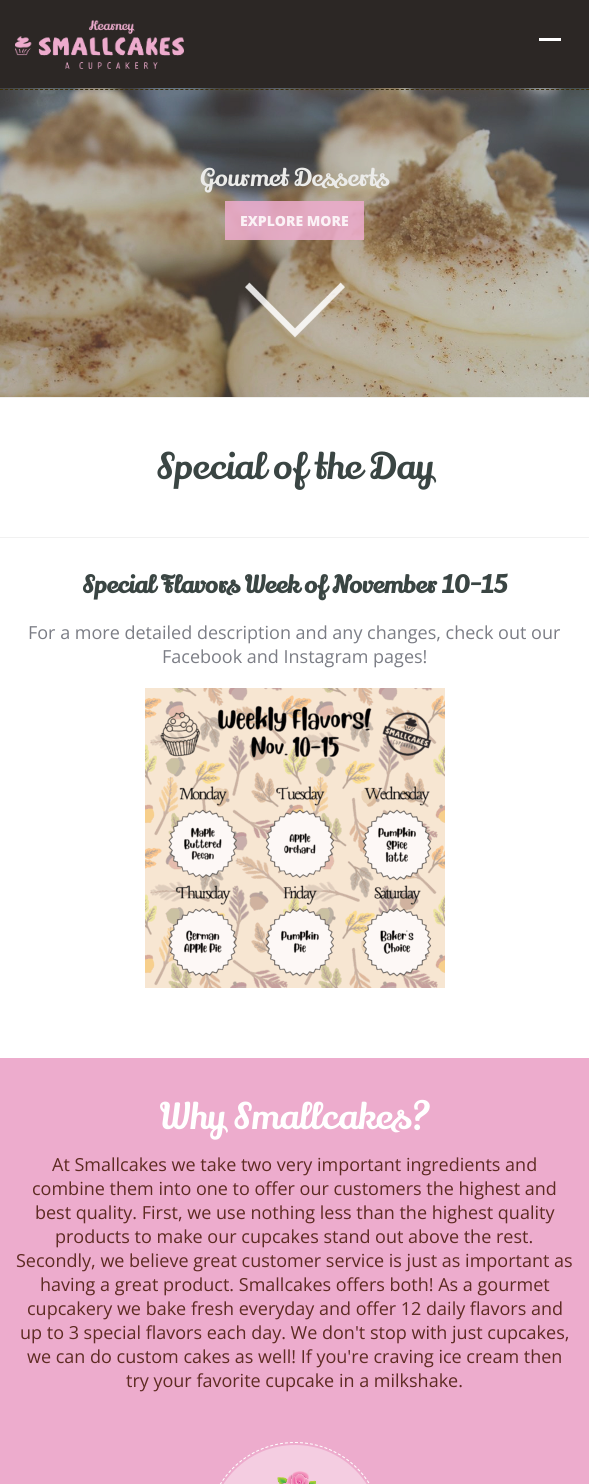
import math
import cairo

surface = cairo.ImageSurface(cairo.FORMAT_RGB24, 589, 1484)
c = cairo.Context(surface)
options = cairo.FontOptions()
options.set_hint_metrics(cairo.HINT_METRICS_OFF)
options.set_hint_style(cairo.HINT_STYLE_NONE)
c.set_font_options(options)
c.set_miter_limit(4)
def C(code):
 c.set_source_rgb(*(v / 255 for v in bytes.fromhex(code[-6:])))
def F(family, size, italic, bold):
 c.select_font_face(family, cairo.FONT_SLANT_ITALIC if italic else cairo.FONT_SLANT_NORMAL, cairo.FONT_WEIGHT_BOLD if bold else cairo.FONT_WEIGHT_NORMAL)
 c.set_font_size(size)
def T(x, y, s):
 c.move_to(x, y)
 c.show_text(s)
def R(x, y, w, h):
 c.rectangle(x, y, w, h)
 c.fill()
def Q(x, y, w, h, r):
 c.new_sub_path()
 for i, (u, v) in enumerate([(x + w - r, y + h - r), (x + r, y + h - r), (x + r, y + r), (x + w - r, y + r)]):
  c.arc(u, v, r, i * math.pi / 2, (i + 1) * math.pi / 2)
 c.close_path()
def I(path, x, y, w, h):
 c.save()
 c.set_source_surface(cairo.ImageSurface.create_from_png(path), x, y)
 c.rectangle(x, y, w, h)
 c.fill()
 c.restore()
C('ffffff')
c.paint()
C('2c2725')
R(0,0,589,88)
I('1.png',15,20,169,49)
C('ffffff')
R(539,38,22,3)
I('2.png',0,88,589,309)
c.new_path()
c.move_to(0,89.5)
c.line_to(589,89.5)
C('3f310a')
c.set_line_width(1)
c.set_dash([3,2.01])
c.stroke()
F('Lily Script One',24,0,0)
C('ebebe9')
T(200,186,'Gourmet Desserts')
c.set_source_rgba(0.929,0.675,0.804,0.85)
R(225,201,139,39)
F('Open Sans ExtraBold',14,0,0)
C('fbf2f6')
T(240,226,'EXPLORE MORE')
I('3.png',245,282,100,56)
C('f1f1f1')
R(0,397,589,1)
R(0,537,589,1)
F('Lily Script One',36,0,0)
C('3a4543')
T(156,479,'Special of the Day')
F('Lily Script One',24,0,1)
T(82,593,'Special Flavors Week of November 10-15')
F('Open Sans',18,0,0)
C('7b7d85')
T(28,639,'For a more detailed description and any changes, check out our')
T(162,663,'Facebook and Instagram pages!')
I('4.png',145,688,300,300)
C('edaccd')
R(0,1058,589,426)
F('Lily Script One',36,0,0)
C('ffffff')
T(160,1129,'Why Smallcakes?')
F('Open Sans',18,0,0)
C('5e2b23')
T(52,1171,'At Smallcakes we take two very important ingredients and')
T(32,1195,'combine them into one to offer our customers the highest and')
T(35,1219,'best quality. First, we use nothing less than the highest quality')
T(55,1243,'products to make our cupcakes stand out above the rest.')
T(16,1267,'Secondly, we believe great customer service is just as important as')
T(40,1291,'having a great product. Smallcakes offers both! As a gourmet')
T(27,1315,'cupcakery we bake fresh everyday and offer 12 daily flavors and')
T(20,1339,'up to 3 special flavors each day. We don\'t stop with just cupcakes,')
T(27,1363,'we can do custom cakes as well! If you\'re craving ice cream then')
T(126,1387,'try your favorite cupcake in a milkshake.')
c.new_path()
c.move_to(295,1442.5)
c.curve_to(343.5,1442.5,382.5,1481.5,382.5,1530)
c.curve_to(382.5,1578.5,343.5,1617.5,295,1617.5)
c.curve_to(246.5,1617.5,207.5,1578.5,207.5,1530)
c.curve_to(207.5,1481.5,246.5,1442.5,295,1442.5)
c.close_path()
C('ffffff')
c.set_dash([3,2])
c.stroke()
C('f4cde1')
Q(210,1445,170,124,85)
c.fill()
I('5.png',277,1471,39,13)
surface.write_to_png('o.png')
